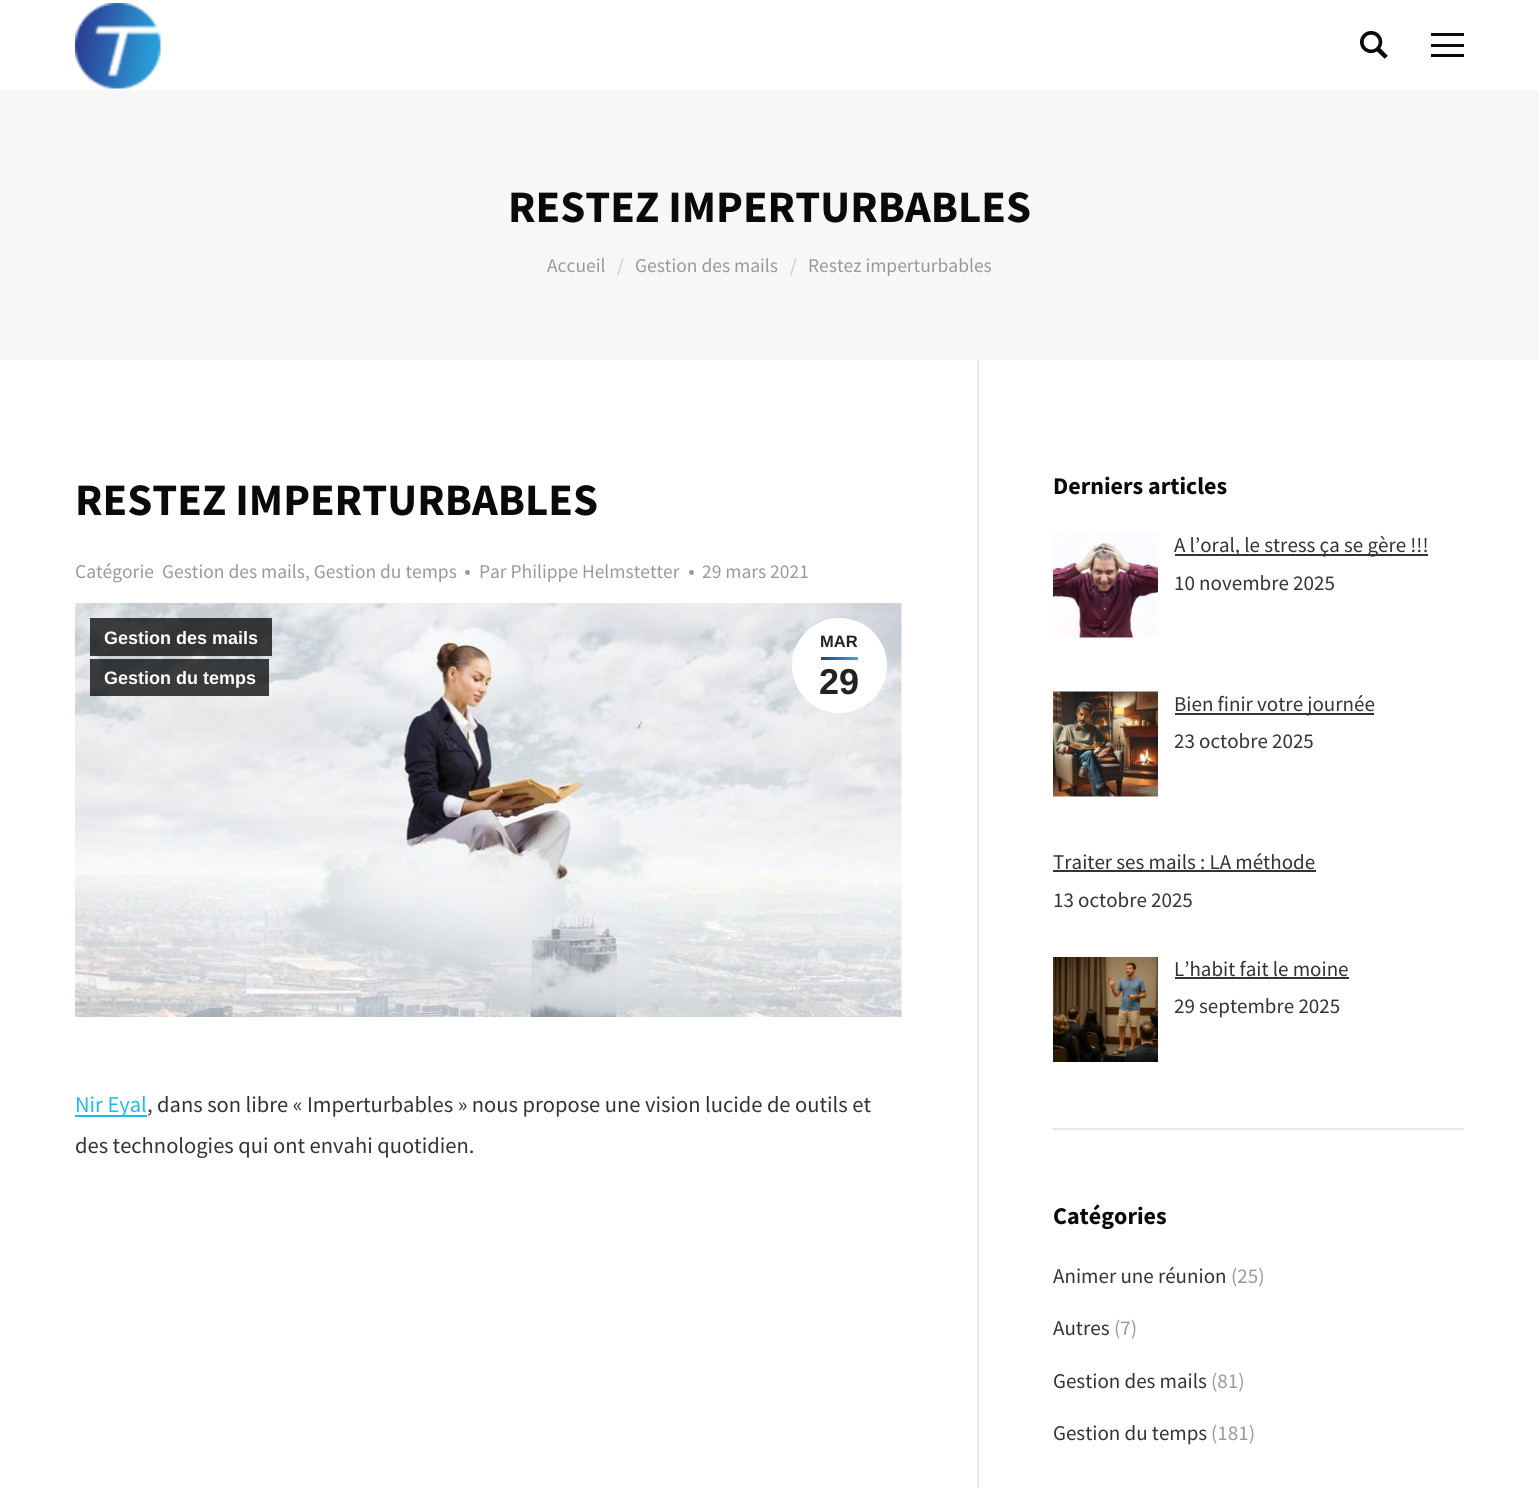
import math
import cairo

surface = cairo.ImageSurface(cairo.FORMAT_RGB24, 1539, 1488)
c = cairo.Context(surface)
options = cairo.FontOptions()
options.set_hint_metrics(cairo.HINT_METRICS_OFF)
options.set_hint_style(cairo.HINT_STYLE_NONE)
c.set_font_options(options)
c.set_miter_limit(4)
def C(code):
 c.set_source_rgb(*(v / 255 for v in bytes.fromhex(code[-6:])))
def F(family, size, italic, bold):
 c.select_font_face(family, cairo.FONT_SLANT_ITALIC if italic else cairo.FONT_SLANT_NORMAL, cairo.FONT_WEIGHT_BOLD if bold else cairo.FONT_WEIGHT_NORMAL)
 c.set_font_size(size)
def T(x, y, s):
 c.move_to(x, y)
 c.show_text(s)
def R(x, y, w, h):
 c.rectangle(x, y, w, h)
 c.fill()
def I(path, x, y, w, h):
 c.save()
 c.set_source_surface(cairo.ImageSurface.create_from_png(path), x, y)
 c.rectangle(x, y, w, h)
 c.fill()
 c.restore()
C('ffffff')
c.paint()
I('1.png',75,3,86,86)
I('2.png',1360,30,28,29)
C('0a0a0a')
R(1431,44,33,3)
R(1431,33,33,3)
R(1431,54,33,3)
C('f7f7f7')
R(0,90,1539,270)
F('Source Sans Pro',45,0,1)
C('0a0a0a')
T(508,222,'RESTEZ IMPERTURBABLES')
F('Source Sans Pro',19.5,0,0)
C('999999')
T(547,272,'Accueil')
C('c8c8c8')
T(617,272,'/')
C('999999')
T(635,272,'Gestion des mails')
C('c8c8c8')
T(790,272,'/')
C('999999')
T(808,272,'Restez imperturbables')
F('Source Sans Pro',45,0,1)
C('0a0a0a')
T(75,515,'RESTEZ IMPERTURBABLES')
F('Source Sans Pro',19.5,0,0)
C('999999')
T(75,578,'Catégorie')
T(162,578,'Gestion des mails, Gestion du temps')
c.new_path()
c.arc(467.5,572.5,2.5,0,2 * math.pi)
c.fill()
T(479,578,'Par Philippe Helmstetter')
c.new_path()
c.arc(691.5,572.5,2.5,0,2 * math.pi)
c.fill()
T(702,578,'29 mars 2021')
I('3.png',75,603,827,414)
c.set_source_rgba(0,0,0,0.75)
R(90,618,182,38)
F('Liberation Sans',18,0,1)
C('ffffff')
T(104,644,'Gestion des mails')
c.set_source_rgba(0,0,0,0.75)
R(90,659,179,37)
C('ffffff')
T(104,684,'Gestion du temps')
c.new_path()
c.arc(839.5,665.5,47.5,0,2 * math.pi)
c.fill()
F('Liberation Sans',16.5,0,1)
C('222222')
T(820,647,'MAR')
gradient = cairo.LinearGradient(821,659,858,659)
gradient.add_color_stop_rgba(0,0.173,0.231,0.553,1)
gradient.add_color_stop_rgba(.99,0.196,0.671,0.875,1)
c.set_source(gradient)
R(821,657,37,3)
F('Liberation Sans',36,0,1)
C('222222')
T(819,694,'29')
C('1ebbf0')
R(75,1115,72,2)
F('Source Sans Pro',22.5,0,0)
T(75,1112,'Nir Eyal')
C('333333')
T(147,1112,', dans son libre « Imperturbables » nous propose une vision lucide de outils et')
T(75,1153,'des technologies qui ont envahi quotidien.')
C('e7e7e7')
R(977,360,2,1128)
F('Source Sans Pro',24,0,1)
C('0a0a0a')
T(1053,494,'Derniers articles')
I('4.png',1053,533,105,105)
C('333333')
R(1175,554,253,2)
F('Source Sans Pro',21,0,0)
T(1174,552,'A l’oral, le stress ça se gère !!!')
T(1174,590,'10 novembre 2025')
I('5.png',1053,691,105,106)
R(1175,713,199,2)
T(1174,711,'Bien finir votre journée')
T(1174,748,'23 octobre 2025')
T(1053,869,'Traiter ses mails : LA méthode')
R(1053,870,263,2)
T(1053,907,'13 octobre 2025')
I('6.png',1053,957,105,105)
T(1174,976,'L’habit fait le moine')
R(1175,977,174,2)
T(1174,1013,'29 septembre 2025')
C('e7e7e7')
R(1053,1128,411,2)
F('Source Sans Pro',24,0,1)
C('0a0a0a')
T(1053,1224,'Catégories')
F('Source Sans Pro',21,0,0)
C('333333')
T(1053,1283,'Animer une réunion')
C('999999')
T(1231,1283,'(25)')
C('333333')
T(1053,1335,'Autres')
C('999999')
T(1114,1335,'(7)')
C('333333')
T(1053,1388,'Gestion des mails')
C('999999')
T(1211,1388,'(81)')
C('333333')
T(1053,1440,'Gestion du temps')
C('999999')
T(1211,1440,'(181)')
surface.write_to_png('o.png')
